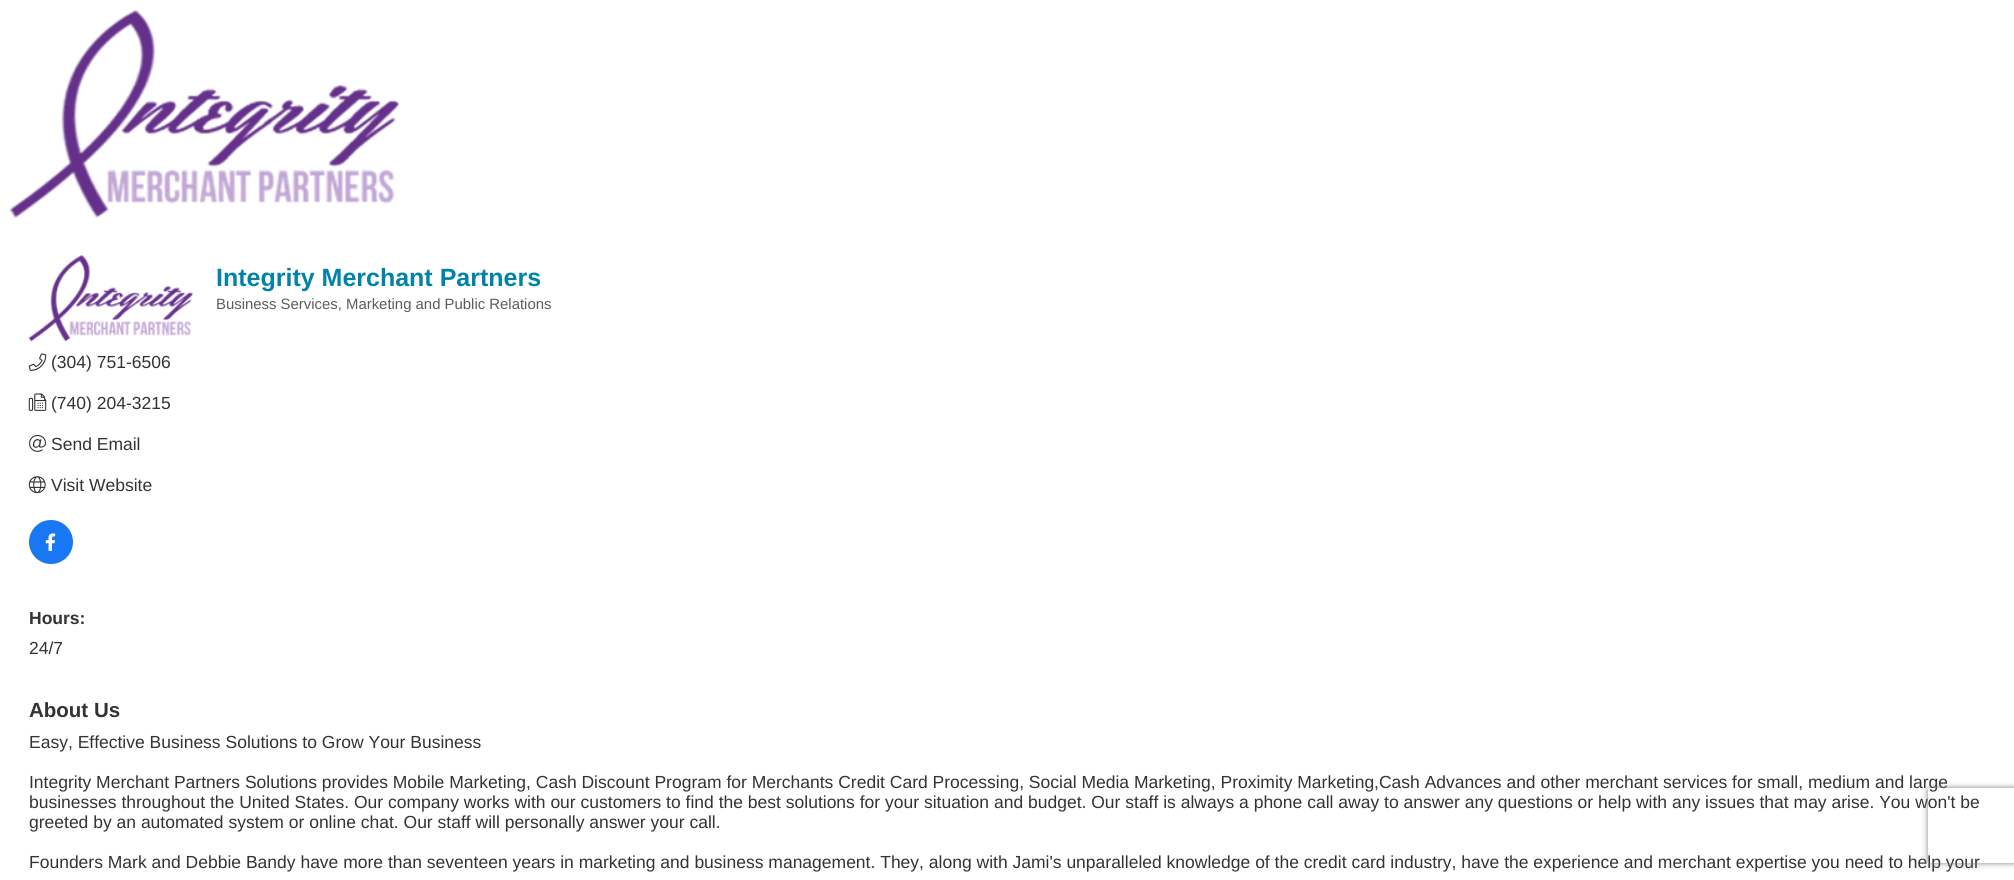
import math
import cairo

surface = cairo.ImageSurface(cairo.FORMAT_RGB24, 2014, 880)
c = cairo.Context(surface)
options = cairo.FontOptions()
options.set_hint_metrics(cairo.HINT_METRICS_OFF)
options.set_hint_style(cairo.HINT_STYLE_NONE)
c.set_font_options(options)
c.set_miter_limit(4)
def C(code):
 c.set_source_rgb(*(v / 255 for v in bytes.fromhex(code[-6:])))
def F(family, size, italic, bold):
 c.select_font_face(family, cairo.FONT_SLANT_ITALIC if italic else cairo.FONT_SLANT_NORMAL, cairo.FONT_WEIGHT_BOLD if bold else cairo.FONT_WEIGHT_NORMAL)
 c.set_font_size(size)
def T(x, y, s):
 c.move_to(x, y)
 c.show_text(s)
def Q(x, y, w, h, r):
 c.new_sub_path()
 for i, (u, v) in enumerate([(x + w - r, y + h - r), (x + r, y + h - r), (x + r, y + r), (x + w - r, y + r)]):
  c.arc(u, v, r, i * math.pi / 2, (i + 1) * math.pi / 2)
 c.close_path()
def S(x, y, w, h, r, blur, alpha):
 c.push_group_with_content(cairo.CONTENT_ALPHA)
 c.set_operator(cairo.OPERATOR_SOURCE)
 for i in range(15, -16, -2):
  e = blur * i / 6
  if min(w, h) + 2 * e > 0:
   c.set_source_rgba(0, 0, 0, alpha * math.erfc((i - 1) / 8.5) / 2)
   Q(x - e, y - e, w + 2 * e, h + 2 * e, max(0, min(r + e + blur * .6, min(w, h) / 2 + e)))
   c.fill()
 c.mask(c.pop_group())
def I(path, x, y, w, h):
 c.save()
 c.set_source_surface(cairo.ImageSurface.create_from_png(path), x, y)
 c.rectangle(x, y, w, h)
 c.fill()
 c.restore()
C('ffffff')
c.paint()
I('1.png',10,10,390,208)
I('2.png',28,255,165,87)
F('Liberation Sans',25,0,1)
C('0183a9')
T(216,286,'Integrity Merchant Partners')
F('Liberation Sans',14.9,0,0)
C('5c5c5c')
T(216,309,'Business Services, Marketing and Public Relations')
I('3.png',28,353,19,18)
F('Liberation Sans',17.5,0,0)
C('333333')
T(51,368,'(304) 751-6506')
I('4.png',28,393,19,18)
T(51,409,'(740) 204-3215')
I('5.png',29,435,17,17)
T(51,450,'Send Email')
I('6.png',28,476,18,18)
T(51,491,'Visit Website')
C('1877f2')
c.new_path()
c.arc(51,542,22,0,2 * math.pi)
c.fill()
I('7.png',45,533,11,18)
F('Liberation Sans',17.5,0,1)
C('333333')
T(29,624,'Hours:')
F('Liberation Sans',17.5,0,0)
T(29,654,'24/7')
F('Liberation Sans',20.5,0,1)
T(29,717,'About Us')
F('Liberation Sans',17.5,0,0)
T(29,748,'Easy, Effective Business Solutions to Grow Your Business')
T(29,788,'Integrity Merchant Partners Solutions provides Mobile Marketing, Cash Discount Program for Merchants Credit Card Processing, Social Media Marketing, Proximity Marketing,Cash Advances and other merchant services for small, medium and large')
T(29,808,'businesses throughout the United States. Our company works with our customers to find the best solutions for your situation and budget. Our staff is always a phone call away to answer any questions or help with any issues that may arise. You won\'t be')
T(29,828,'greeted by an automated system or online chat. Our staff will personally answer your call.')
T(29,868,'Founders Mark and Debbie Bandy have more than seventeen years in marketing and business management. They, along with Jami\'s unparalleled knowledge of the credit card industry, have the experience and merchant expertise you need to help your')
c.save()
c.set_fill_rule(cairo.FILL_RULE_EVEN_ODD)
c.new_path()
c.move_to(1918,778)
c.line_to(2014,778)
c.line_to(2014,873)
c.line_to(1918,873)
c.close_path()
c.move_to(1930.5,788)
c.line_to(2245.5,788)
c.curve_to(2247,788,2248,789,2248,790.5)
c.line_to(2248,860.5)
c.curve_to(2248,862,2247,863,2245.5,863)
c.line_to(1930.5,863)
c.curve_to(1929,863,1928,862,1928,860.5)
c.line_to(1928,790.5)
c.curve_to(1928,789,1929,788,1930.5,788)
c.close_path()
c.clip()
C('808080')
S(1928,788,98,75,2.5,3,1)
c.restore()
surface.write_to_png('o.png')
